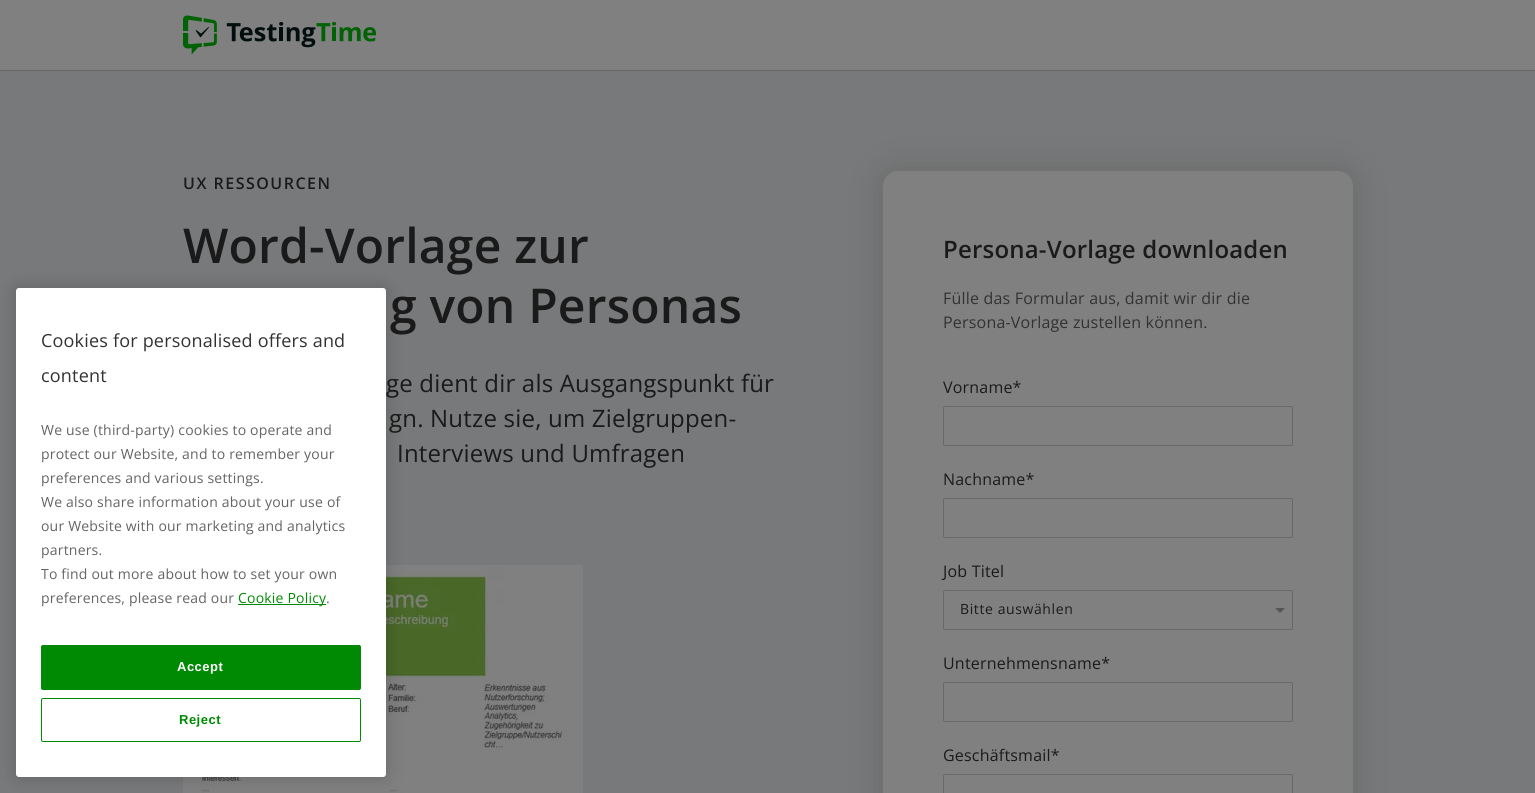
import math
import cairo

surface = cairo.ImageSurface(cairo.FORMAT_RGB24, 1535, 793)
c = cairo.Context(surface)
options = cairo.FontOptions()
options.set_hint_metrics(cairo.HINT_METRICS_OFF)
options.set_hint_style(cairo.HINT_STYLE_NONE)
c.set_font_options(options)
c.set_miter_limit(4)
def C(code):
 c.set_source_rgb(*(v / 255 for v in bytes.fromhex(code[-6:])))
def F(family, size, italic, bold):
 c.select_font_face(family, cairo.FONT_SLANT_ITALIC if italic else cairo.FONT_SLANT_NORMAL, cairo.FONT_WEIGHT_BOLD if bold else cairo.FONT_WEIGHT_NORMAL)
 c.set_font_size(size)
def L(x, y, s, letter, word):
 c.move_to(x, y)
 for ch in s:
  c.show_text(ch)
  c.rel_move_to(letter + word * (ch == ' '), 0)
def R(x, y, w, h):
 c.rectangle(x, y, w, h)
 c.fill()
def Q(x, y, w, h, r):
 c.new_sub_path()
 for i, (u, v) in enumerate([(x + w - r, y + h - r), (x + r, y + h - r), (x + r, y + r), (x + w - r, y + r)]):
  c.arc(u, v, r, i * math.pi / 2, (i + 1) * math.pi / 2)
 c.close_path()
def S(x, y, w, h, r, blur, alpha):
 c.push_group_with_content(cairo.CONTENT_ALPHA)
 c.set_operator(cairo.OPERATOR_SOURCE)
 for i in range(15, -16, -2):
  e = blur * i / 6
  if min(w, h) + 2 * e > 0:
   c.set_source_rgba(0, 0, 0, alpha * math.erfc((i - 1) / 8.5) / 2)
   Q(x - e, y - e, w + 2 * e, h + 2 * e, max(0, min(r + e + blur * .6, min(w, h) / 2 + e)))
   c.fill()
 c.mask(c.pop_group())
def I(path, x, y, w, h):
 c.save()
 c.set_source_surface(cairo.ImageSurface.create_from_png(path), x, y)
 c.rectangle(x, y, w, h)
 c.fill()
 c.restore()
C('808080')
c.paint()
C('656668')
R(0,70,1535,1)
I('1.png',183,15,193,40)
C('78797a')
R(0,71,1535,722)
F('Open Sans SemiBold',16,0,0)
C('1a1a1a')
L(183,189,'UX RESSOURCEN',1.5,0)
F('Open Sans SemiBold',48,0,0)
L(183,263,'Word-Vorlage zur',.2,0)
L(390,323,'g von Personas',.2,0)
F('Open Sans',24,0,0)
L(386,392,'ge dient dir als Ausgangspunkt für',.2,0)
L(389,427,'gn. Nutze sie, um Zielgruppen-',.2,0)
L(397,462,'Interviews und Umfragen',.2,0)
I('2.png',183,565,400,228)
C('5f5f5f')
S(876,164,484,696,22,15,.5)
C('808080')
Q(883,171,470,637,15)
c.fill()
F('Open Sans SemiBold',24,0,0)
C('1a1a1a')
L(943,258,'Persona-Vorlage downloaden',.2,0)
F('Open Sans',16,0,0)
C('323232')
L(943,304,'Fülle das Formular aus, damit wir dir die',.2,0)
L(943,328,'Persona-Vorlage zustellen können.',.2,0)
C('1a1a1a')
L(943,393,'Vorname*',.2,0)
Q(943.5,406.5,349,39,1.5)
C('696969')
c.set_line_width(1)
c.stroke()
C('1a1a1a')
L(943,485,'Nachname*',.2,0)
Q(943.5,498.5,349,39,1.5)
C('696969')
c.stroke()
C('1a1a1a')
L(943,577,'Job Titel',.2,0)
C('555555')
c.new_path()
c.move_to(1275,608)
c.line_to(1280,613)
c.line_to(1285,608)
c.close_path()
c.fill()
Q(943.5,590.5,349,39,1.5)
C('696969')
c.stroke()
F('Open Sans',14,0,0)
C('1a1a1a')
L(960,614,'Bitte auswählen',.6,0)
F('Open Sans',16,0,0)
L(943,669,'Unternehmensname*',.2,0)
Q(943.5,682.5,349,39,1.5)
C('696969')
c.stroke()
C('1a1a1a')
L(943,761,'Geschäftsmail*',.2,0)
Q(943.5,774.5,349,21,1.5)
C('696969')
c.stroke()
C('000000')
S(16,288,370,489,3,9,.2)
C('ffffff')
Q(16,288,370,489,3)
c.fill()
F('Open Sans',18,0,0)
C('323232')
L(41,347,'Cookies for personalised offers and',.2,0)
L(41,382,'content',.2,0)
F('Open Sans',14,0,0)
C('646464')
L(41,435,'We use (third-party) cookies to operate and',.2,0)
L(41,459,'protect our Website, and to remember your',.2,0)
L(41,483,'preferences and various settings.',.2,0)
L(41,507,'We also share information about your use of',.2,0)
L(41,531,'our Website with our marketing and analytics',.2,0)
L(41,555,'partners.',.2,0)
L(41,579,'To find out more about how to set your own',.2,0)
L(41,603,'preferences, please read our',.2,0)
C('008a04')
R(238,604,88,1)
L(238,603,'Cookie Policy',.2,0)
C('646464')
L(326,603,'.',.2,0)
C('008a04')
Q(41.5,645.5,319,44,1.5)
c.fill_preserve()
c.stroke()
F('Liberation Sans',13,0,1)
C('ffffff')
L(177,671,'Accept',.5,0)
Q(41.5,698.5,319,43,1.5)
C('008a04')
c.stroke()
L(179,724,'Reject',.5,0)
surface.write_to_png('o.png')
